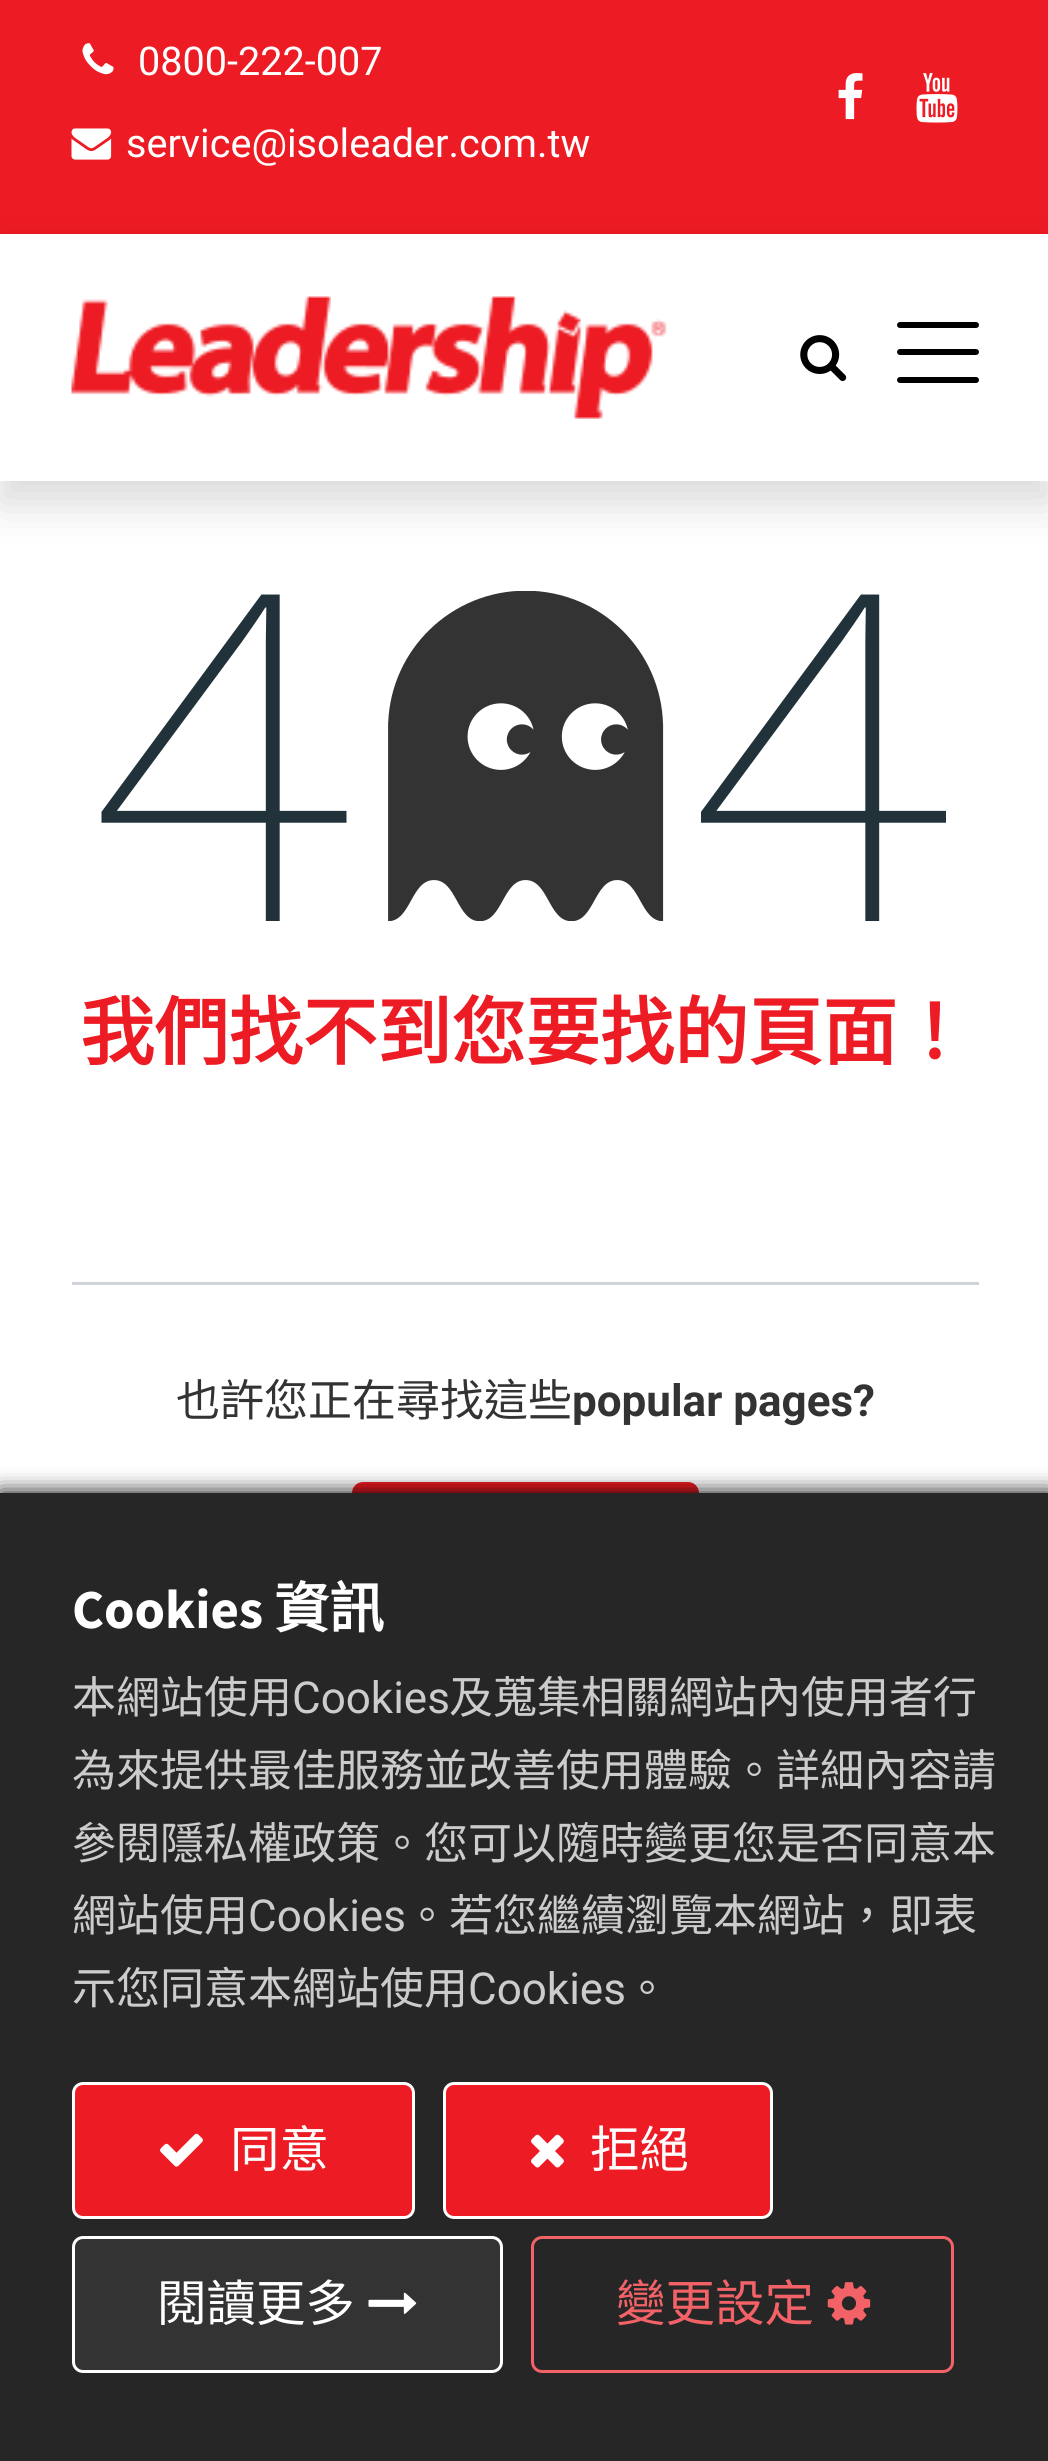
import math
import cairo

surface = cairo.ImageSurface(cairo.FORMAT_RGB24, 1048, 2461)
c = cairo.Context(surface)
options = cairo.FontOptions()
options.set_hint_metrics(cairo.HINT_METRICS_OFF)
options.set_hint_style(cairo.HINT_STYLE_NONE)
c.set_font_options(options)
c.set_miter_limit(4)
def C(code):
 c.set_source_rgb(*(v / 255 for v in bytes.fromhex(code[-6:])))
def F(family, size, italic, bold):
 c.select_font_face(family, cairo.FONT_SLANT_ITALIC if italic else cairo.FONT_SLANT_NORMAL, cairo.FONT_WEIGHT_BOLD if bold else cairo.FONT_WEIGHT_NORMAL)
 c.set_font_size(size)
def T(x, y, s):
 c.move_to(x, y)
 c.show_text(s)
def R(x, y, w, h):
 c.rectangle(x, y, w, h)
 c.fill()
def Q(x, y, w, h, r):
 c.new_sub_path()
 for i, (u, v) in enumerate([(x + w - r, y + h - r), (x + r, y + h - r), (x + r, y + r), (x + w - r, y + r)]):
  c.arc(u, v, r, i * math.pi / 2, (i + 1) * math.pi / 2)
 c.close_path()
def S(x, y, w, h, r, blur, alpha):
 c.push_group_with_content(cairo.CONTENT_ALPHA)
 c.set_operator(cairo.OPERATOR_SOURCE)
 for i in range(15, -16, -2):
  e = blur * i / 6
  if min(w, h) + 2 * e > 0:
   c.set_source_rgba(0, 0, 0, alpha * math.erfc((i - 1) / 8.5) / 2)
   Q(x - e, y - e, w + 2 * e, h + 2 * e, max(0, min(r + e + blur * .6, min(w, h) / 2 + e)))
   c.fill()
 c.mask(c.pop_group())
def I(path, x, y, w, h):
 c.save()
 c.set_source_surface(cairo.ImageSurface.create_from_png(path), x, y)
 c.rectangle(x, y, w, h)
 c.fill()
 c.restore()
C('ffffff')
c.paint()
C('ed1b23')
R(0,0,1048,234)
I('1.png',82,43,32,32)
F('Roboto',39.6,0,0)
C('ffffff')
T(138,75,'0800-222-007')
I('2.png',71,128,41,32)
T(126,157,'service@isoleader.com.tw')
I('3.png',838,73,25,47)
I('4.png',916,73,42,50)
c.save()
c.set_fill_rule(cairo.FILL_RULE_EVEN_ODD)
c.new_path()
c.move_to(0,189)
c.line_to(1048,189)
c.line_to(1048,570)
c.line_to(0,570)
c.close_path()
c.move_to(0,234)
c.line_to(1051,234)
c.line_to(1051,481)
c.line_to(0,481)
c.close_path()
c.clip()
C('000000')
S(0,256,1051,247,0,22,.15)
c.restore()
I('5.png',71,296,596,123)
I('6.png',800,335,47,47)
C('000000')
Q(897,322,82,6,3)
c.fill()
Q(897,349,82,6,3)
c.fill()
Q(897,377,82,6,3)
c.fill()
I('7.png',101,591,845,330)
F('Noto Sans CJK TC',74.25,0,1)
C('ed1b23')
T(80,1059,'我們找不到您要找的頁面！')
C('ced4da')
R(72,1282,907,3)
F('Noto Sans CJK TC',44,0,0)
C('333333')
T(176,1416,'也許您正在尋找這些')
F('Roboto',44,0,1)
T(572,1416,'popular pages?')
C('ed1b23')
Q(353.5,1483.5,344,132,9.5)
c.fill_preserve()
c.set_line_width(3)
c.stroke()
C('000000')
S(0,1493,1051,968,0,11,1)
C('262626')
R(0,1493,1048,968)
F('Source Sans Pro',55,0,1)
C('ffffff')
T(72,1628,'Cookies')
F('Noto Sans CJK TC',55,0,1)
T(274,1628,'資訊')
F('Noto Sans CJK TC',44,0,0)
C('cccccc')
T(72,1713,'本網站使用')
F('Roboto',44,0,0)
T(292,1713,'Cookies')
F('Noto Sans CJK TC',44,0,0)
T(449,1713,'及蒐集相關網站內使用者行')
T(72,1786,'為來提供最佳服務並改善使用體驗。詳細內容請')
T(72,1859,'參閱隱私權政策。您可以隨時變更您是否同意本')
T(72,1931,'網站使用')
F('Roboto',44,0,0)
T(248,1931,'Cookies')
F('Noto Sans CJK TC',44,0,0)
T(405,1931,'。若您繼續瀏覽本網站，即表')
T(72,2004,'示您同意本網站使用')
F('Roboto',44,0,0)
T(468,2004,'Cookies')
F('Noto Sans CJK TC',44,0,0)
T(625,2004,'。')
C('ed1b23')
Q(73.5,2083.5,340,134,9.5)
c.fill_preserve()
C('ffffff')
c.stroke()
I('8.png',160,2133,43,34)
F('Noto Sans CJK TC',49.5,0,0)
T(230,2167,'同意')
C('ed1b23')
Q(444.5,2083.5,327,134,9.5)
c.fill_preserve()
C('ffffff')
c.stroke()
I('9.png',531,2134,33,34)
T(590,2167,'拒絕')
C('333333')
Q(73.5,2237.5,428,134,9.5)
c.fill_preserve()
C('ffffff')
c.stroke()
T(157,2321,'閱讀更多')
I('10.png',368,2292,49,22)
Q(532.5,2237.5,420,134,9.5)
C('f36267')
c.stroke()
T(616,2321,'變更設定')
I('11.png',827,2282,44,43)
surface.write_to_png('o.png')
